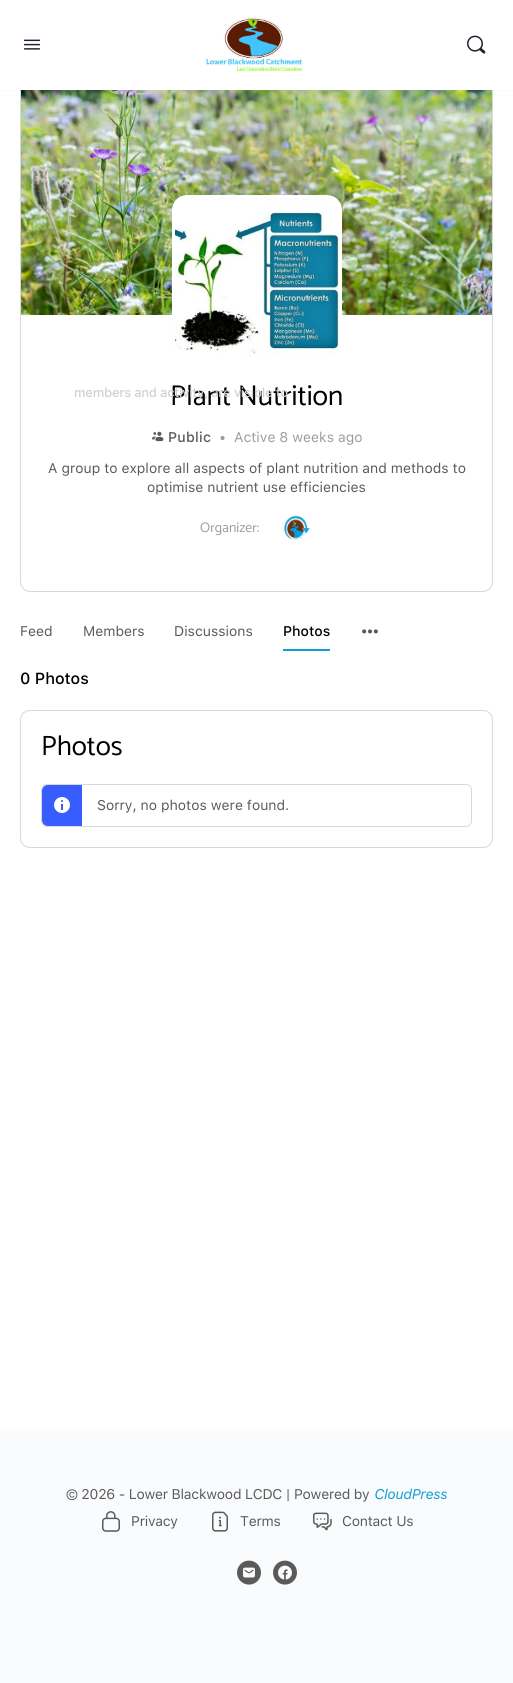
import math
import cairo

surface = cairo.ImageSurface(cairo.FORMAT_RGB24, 513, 1683)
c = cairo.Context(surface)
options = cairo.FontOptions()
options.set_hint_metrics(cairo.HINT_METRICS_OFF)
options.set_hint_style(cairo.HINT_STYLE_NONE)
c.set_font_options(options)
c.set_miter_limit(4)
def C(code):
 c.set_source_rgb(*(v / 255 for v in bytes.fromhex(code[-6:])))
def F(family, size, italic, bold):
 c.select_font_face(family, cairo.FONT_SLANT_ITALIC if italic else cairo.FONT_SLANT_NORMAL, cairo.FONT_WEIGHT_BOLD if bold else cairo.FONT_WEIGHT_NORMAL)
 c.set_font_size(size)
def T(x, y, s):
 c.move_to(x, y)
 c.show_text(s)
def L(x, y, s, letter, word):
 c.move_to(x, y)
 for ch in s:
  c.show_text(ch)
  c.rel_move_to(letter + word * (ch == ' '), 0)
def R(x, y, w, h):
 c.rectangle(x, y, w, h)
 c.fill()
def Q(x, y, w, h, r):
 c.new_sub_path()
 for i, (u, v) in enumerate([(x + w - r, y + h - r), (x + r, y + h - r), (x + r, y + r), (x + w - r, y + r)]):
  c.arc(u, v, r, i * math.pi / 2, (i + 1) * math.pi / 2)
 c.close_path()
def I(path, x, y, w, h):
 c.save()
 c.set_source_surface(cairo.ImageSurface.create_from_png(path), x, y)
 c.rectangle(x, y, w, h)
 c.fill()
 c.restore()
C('ffffff')
c.paint()
c.new_path()
c.move_to(20.5,89.5)
c.line_to(492.5,89.5)
c.line_to(492.5,582)
c.curve_to(492.5,587,488,591.5,483,591.5)
c.line_to(30,591.5)
c.curve_to(25,591.5,20.5,587,20.5,582)
c.close_path()
C('d6d9dd')
c.set_line_width(1)
c.stroke()
I('4.png',21,90,471,225)
c.set_source_rgba(0.545,0.553,0.616,0.05)
R(0,90,513,1)
C('ffffff')
R(20,89,473,1)
I('1.png',24,39,16,11)
I('2.png',205,17,98,55)
I('3.png',467,35,19,19)
Q(173.5,196.5,167,167,13.5)
c.fill_preserve()
c.set_line_width(3)
c.stroke()
I('5.png',175,198,164,158)
F('Catamaran Thin',28.75,0,0)
C('000000')
T(170,405,'Plant Nutrition')
F('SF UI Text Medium',13,0,0)
C('d1d1d1')
L(74,397,'members and activity, are visible to',-.25,0)
I('6.png',151,431,13,11)
F('SF UI Text Medium',14,0,0)
C('5a5a5a')
L(168,442,'Public',.25,0)
F('SF UI Text',14,0,0)
C('9b9c9f')
T(219,442,'•')
T(234,442,'Active 8 weeks ago')
C('5a5a5a')
T(48,473,'A group to explore all aspects of plant nutrition and methods to')
T(147,492,'optimise nutrient use efficiencies')
F('Catamaran Thin',14,0,0)
C('9b9c9f')
T(200,532,'Organizer:')
I('7.png',284,515,26,25)
F('SF UI Text',14,0,0)
C('5a5a5a')
T(20,636,'Feed')
T(83,636,'Members')
T(174,636,'Discussions')
F('SF UI Text Medium',14,0,0)
C('000000')
T(283,636,'Photos')
C('139cd8')
R(283,649,47,2)
I('8.png',362,629,16,5)
F('SF UI Text Medium',16,0,0)
C('000000')
T(20,684,'0 Photos')
Q(20.5,710.5,472,137,9.5)
C('d6d9dd')
c.set_line_width(1)
c.stroke()
F('Catamaran Thin',28,0,0)
C('000000')
T(41,755,'Photos')
Q(41.5,784.5,430,42,5.5)
C('d6d9dd')
c.stroke()
C('385dff')
c.new_path()
c.move_to(48,785)
c.line_to(82,785)
c.line_to(82,826)
c.line_to(48,826)
c.curve_to(44.5,826,42,823.5,42,820)
c.line_to(42,791)
c.curve_to(42,787.5,44.5,785,48,785)
c.close_path()
c.fill()
I('9.png',54,797,16,16)
F('SF UI Text',14,0,0)
C('5a5a5a')
T(97,810,'Sorry, no photos were found.')
C('fafbfd')
R(0,1431,513,252)
C('5a5a5a')
L(66,1499,'© 2026 - Lower Blackwood LCDC | Powered by',-.25,0)
F('SF UI Text',14,1,0)
C('139cd8')
L(374,1499,'CloudPress',-.25,0)
I('10.png',102,1511,18,21)
F('SF UI Text',14,0,0)
C('5a5a5a')
L(131,1526,'Privacy',-.25,0)
I('11.png',212,1511,16,21)
L(240,1526,'Terms',-.25,0)
I('12.png',313,1512,19,19)
L(342,1526,'Contact Us',-.25,0)
I('13.png',237,1560,24,25)
I('14.png',273,1560,24,25)
surface.write_to_png('o.png')
